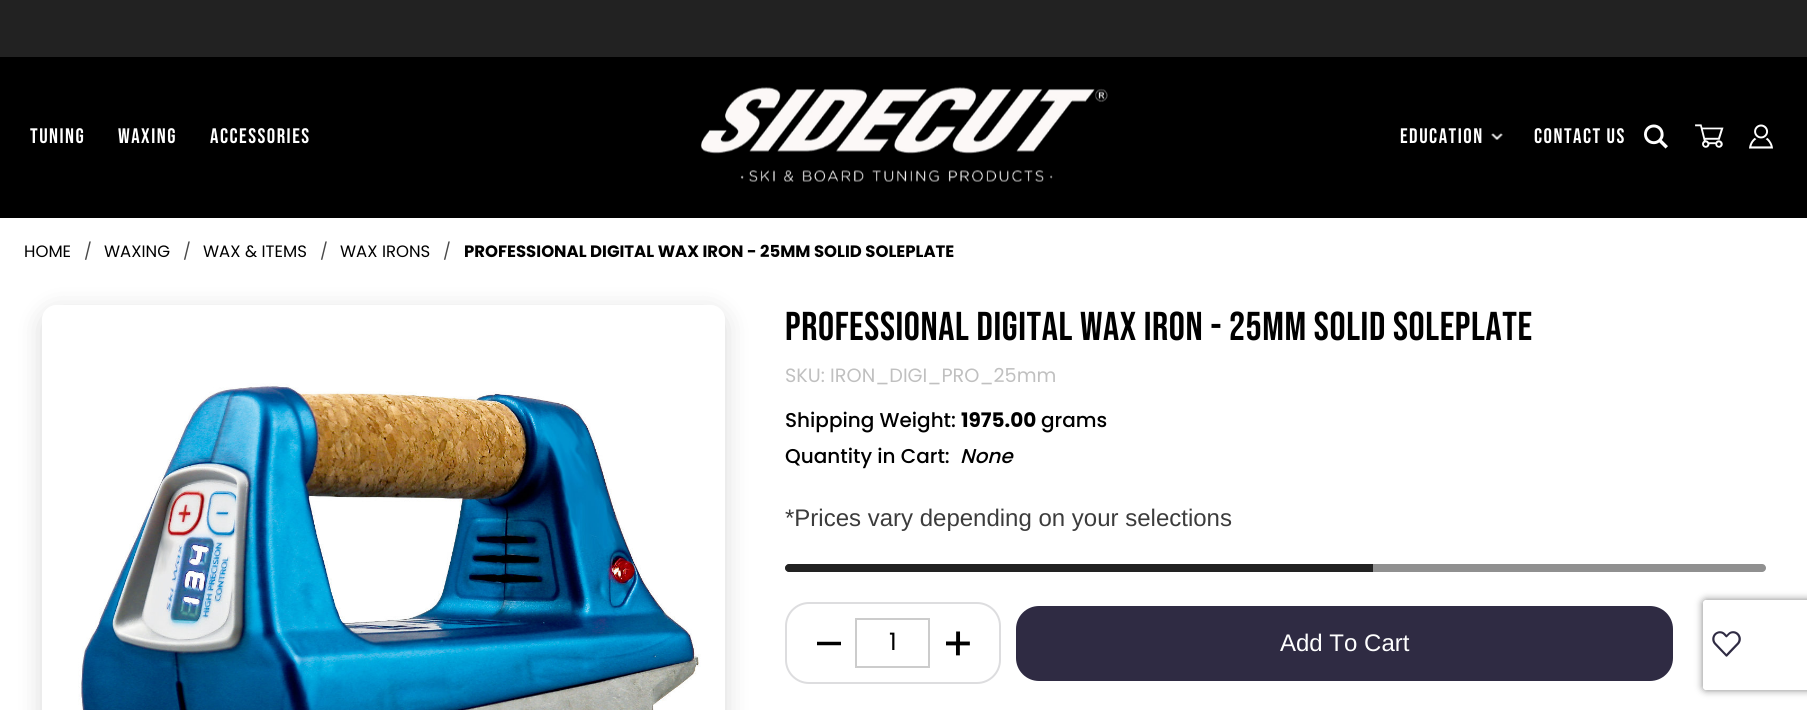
import math
import cairo

surface = cairo.ImageSurface(cairo.FORMAT_RGB24, 1807, 710)
c = cairo.Context(surface)
options = cairo.FontOptions()
options.set_hint_metrics(cairo.HINT_METRICS_OFF)
options.set_hint_style(cairo.HINT_STYLE_NONE)
c.set_font_options(options)
c.set_miter_limit(4)
def C(code):
 c.set_source_rgb(*(v / 255 for v in bytes.fromhex(code[-6:])))
def F(family, size, italic, bold):
 c.select_font_face(family, cairo.FONT_SLANT_ITALIC if italic else cairo.FONT_SLANT_NORMAL, cairo.FONT_WEIGHT_BOLD if bold else cairo.FONT_WEIGHT_NORMAL)
 c.set_font_size(size)
def T(x, y, s):
 c.move_to(x, y)
 c.show_text(s)
def L(x, y, s, letter, word):
 c.move_to(x, y)
 for ch in s:
  c.show_text(ch)
  c.rel_move_to(letter + word * (ch == ' '), 0)
def R(x, y, w, h):
 c.rectangle(x, y, w, h)
 c.fill()
def Q(x, y, w, h, r):
 c.new_sub_path()
 for i, (u, v) in enumerate([(x + w - r, y + h - r), (x + r, y + h - r), (x + r, y + r), (x + w - r, y + r)]):
  c.arc(u, v, r, i * math.pi / 2, (i + 1) * math.pi / 2)
 c.close_path()
def S(x, y, w, h, r, blur, alpha):
 c.push_group_with_content(cairo.CONTENT_ALPHA)
 c.set_operator(cairo.OPERATOR_SOURCE)
 for i in range(15, -16, -2):
  e = blur * i / 6
  if min(w, h) + 2 * e > 0:
   c.set_source_rgba(0, 0, 0, alpha * math.erfc((i - 1) / 8.5) / 2)
   Q(x - e, y - e, w + 2 * e, h + 2 * e, max(0, min(r + e + blur * .6, min(w, h) / 2 + e)))
   c.fill()
 c.mask(c.pop_group())
def I(path, x, y, w, h):
 c.save()
 c.set_source_surface(cairo.ImageSurface.create_from_png(path), x, y)
 c.rectangle(x, y, w, h)
 c.fill()
 c.restore()
C('ffffff')
c.paint()
C('222222')
R(0,0,1807,57)
C('000000')
R(0,57,1807,161)
F('Bebas Neue',21,0,0)
C('ffffff')
L(30,143,'Tuning',1.5,0)
L(118,143,'Waxing',1.5,0)
L(210,143,'Accessories',1.5,0)
I('1.png',700,87,408,95)
L(1400,143,'Education',1.5,0)
I('2.png',1491,133,12,7)
L(1534,143,'Contact us',1.5,0)
I('3.png',1644,124,24,25)
I('4.png',1695,124,29,24)
I('5.png',1749,124,24,25)
F('Poppins',16.5,0,0)
C('000000')
T(24,257,'HOME')
C('4a4a4a')
T(84,257,'/')
C('000000')
T(104,257,'WAXING')
C('4a4a4a')
T(183,257,'/')
C('000000')
T(203,257,'WAX & ITEMS')
C('4a4a4a')
T(320,257,'/')
C('000000')
T(340,257,'WAX IRONS')
C('4a4a4a')
T(443,257,'/')
F('Poppins',16.5,0,1)
C('000000')
T(464,257,'PROFESSIONAL DIGITAL WAX IRON - 25MM SOLID SOLEPLATE')
c.save()
c.set_fill_rule(cairo.FILL_RULE_EVEN_ODD)
c.new_path()
c.move_to(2,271)
c.line_to(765,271)
c.line_to(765,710)
c.line_to(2,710)
c.close_path()
c.move_to(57,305)
c.line_to(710,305)
c.curve_to(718.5,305,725,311.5,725,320)
c.line_to(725,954)
c.curve_to(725,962.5,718.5,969,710,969)
c.line_to(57,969)
c.curve_to(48.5,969,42,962.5,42,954)
c.line_to(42,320)
c.curve_to(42,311.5,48.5,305,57,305)
c.close_path()
c.clip()
C('000000')
S(42,311,683,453,15,13,.15)
c.restore()
I('6.png',78,383,623,327)
F('Bebas Neue',40.25,0,0)
L(785,340,'PROFESSIONAL DIGITAL WAX IRON - 25MM SOLID SOLEPLATE',.6,0)
F('Poppins',19.25,0,0)
C('c0c0c0')
T(785,382,'SKU: IRON_DIGI_PRO_25mm')
F('Poppins Medium',20,0,0)
C('000000')
T(785,427,'Shipping Weight:')
F('Poppins',20,0,1)
T(961,427,'1975.00')
F('Poppins Medium',20,0,0)
T(1041,427,'grams')
T(785,463,'Quantity in Cart:')
F('Poppins Medium',20,1,0)
T(960,463,'None')
F('Liberation Sans',24,0,0)
C('3c3c3c')
T(785,526,'*Prices vary depending on your selections')
C('909090')
Q(785,564,981,8,4)
c.fill()
C('222222')
c.new_path()
c.move_to(789,564)
c.line_to(1373,564)
c.line_to(1373,572)
c.line_to(789,572)
c.curve_to(787,572,785,570,785,568)
c.curve_to(785,566,787,564,789,564)
c.close_path()
c.fill()
Q(786,603,214,80,23)
C('dddddf')
c.stroke()
F('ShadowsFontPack',24,0,0)
C('000000')
T(817,654,'<')
c.rectangle(856,619,73,48)
C('cccccc')
c.stroke()
F('Poppins',24,0,0)
C('000000')
T(889,650,'1')
F('ShadowsFontPack',24,0,0)
T(946,654,'=')
C('2f2b43')
Q(1016,606,657,75,23)
c.fill()
F('Liberation Sans',24,0,0)
C('ffffff')
T(1280,651,'Add To Cart')
I('7.png',1712,631,29,26)
c.save()
c.set_fill_rule(cairo.FILL_RULE_EVEN_ODD)
c.new_path()
c.move_to(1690,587)
c.line_to(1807,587)
c.line_to(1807,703)
c.line_to(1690,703)
c.close_path()
c.move_to(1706,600)
c.line_to(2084,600)
c.curve_to(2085.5,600,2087,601.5,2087,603)
c.line_to(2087,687)
c.curve_to(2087,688.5,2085.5,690,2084,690)
c.line_to(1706,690)
c.curve_to(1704.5,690,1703,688.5,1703,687)
c.line_to(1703,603)
c.curve_to(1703,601.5,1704.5,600,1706,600)
c.close_path()
c.clip()
C('808080')
S(1703,600,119,90,3,4,1)
c.restore()
surface.write_to_png('o.png')
